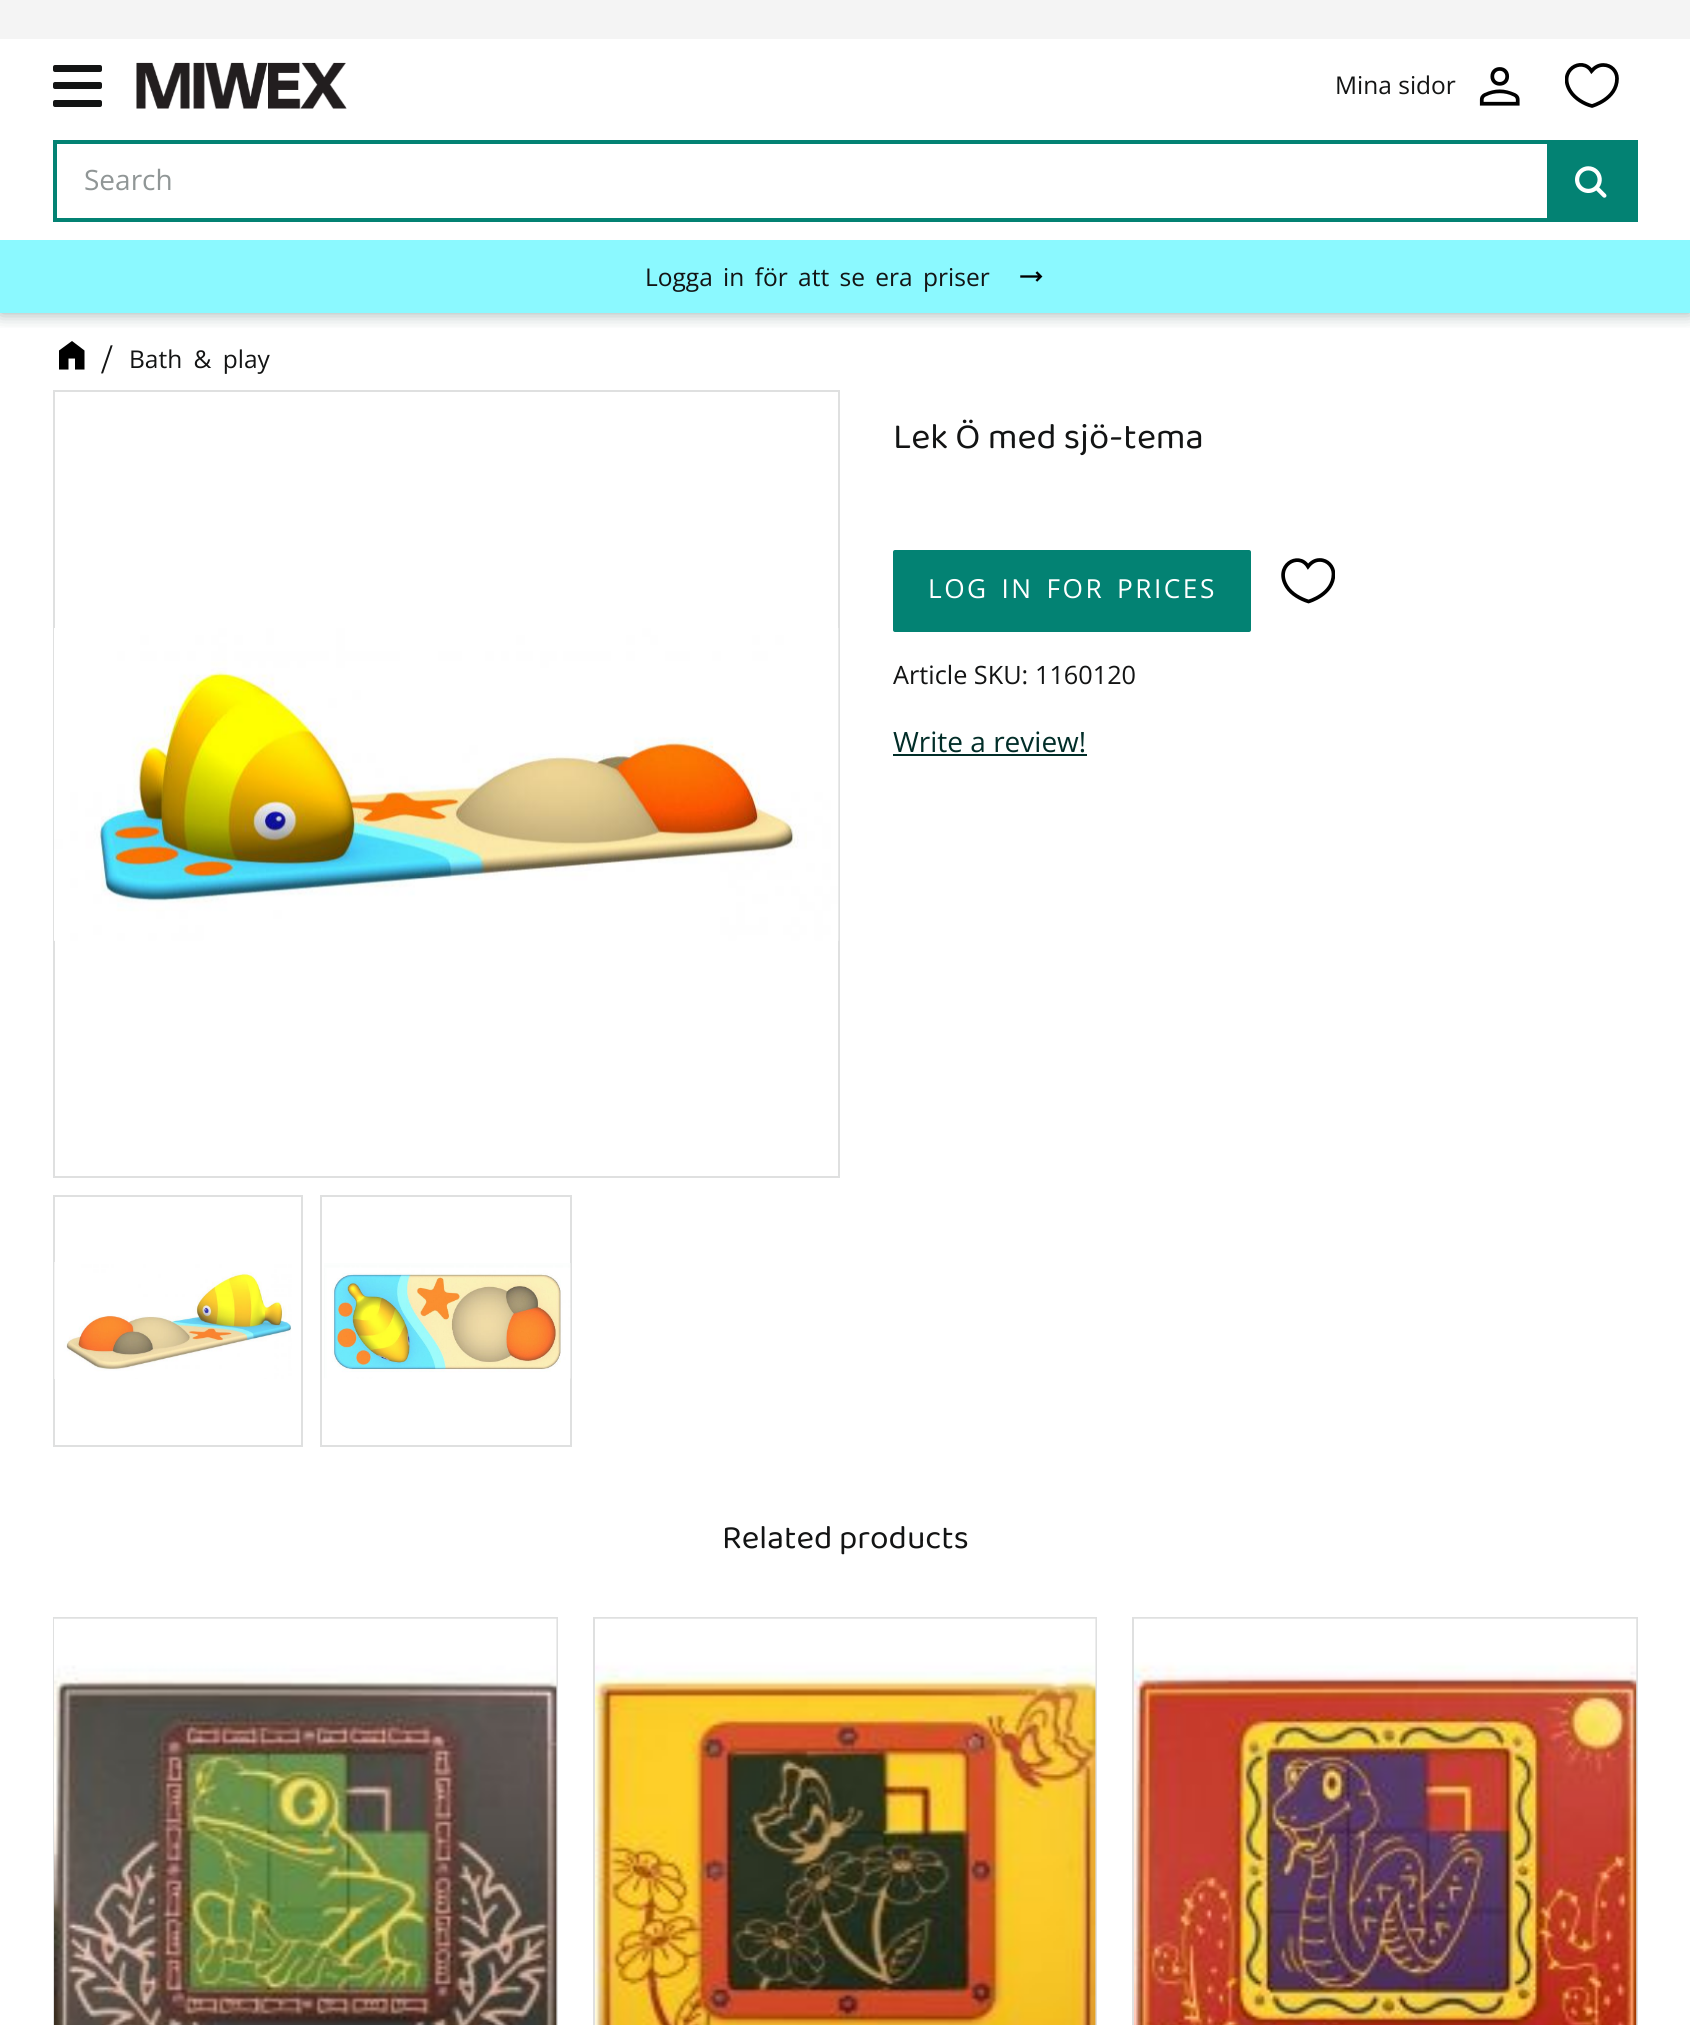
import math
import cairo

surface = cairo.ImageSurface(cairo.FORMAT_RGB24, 1690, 2025)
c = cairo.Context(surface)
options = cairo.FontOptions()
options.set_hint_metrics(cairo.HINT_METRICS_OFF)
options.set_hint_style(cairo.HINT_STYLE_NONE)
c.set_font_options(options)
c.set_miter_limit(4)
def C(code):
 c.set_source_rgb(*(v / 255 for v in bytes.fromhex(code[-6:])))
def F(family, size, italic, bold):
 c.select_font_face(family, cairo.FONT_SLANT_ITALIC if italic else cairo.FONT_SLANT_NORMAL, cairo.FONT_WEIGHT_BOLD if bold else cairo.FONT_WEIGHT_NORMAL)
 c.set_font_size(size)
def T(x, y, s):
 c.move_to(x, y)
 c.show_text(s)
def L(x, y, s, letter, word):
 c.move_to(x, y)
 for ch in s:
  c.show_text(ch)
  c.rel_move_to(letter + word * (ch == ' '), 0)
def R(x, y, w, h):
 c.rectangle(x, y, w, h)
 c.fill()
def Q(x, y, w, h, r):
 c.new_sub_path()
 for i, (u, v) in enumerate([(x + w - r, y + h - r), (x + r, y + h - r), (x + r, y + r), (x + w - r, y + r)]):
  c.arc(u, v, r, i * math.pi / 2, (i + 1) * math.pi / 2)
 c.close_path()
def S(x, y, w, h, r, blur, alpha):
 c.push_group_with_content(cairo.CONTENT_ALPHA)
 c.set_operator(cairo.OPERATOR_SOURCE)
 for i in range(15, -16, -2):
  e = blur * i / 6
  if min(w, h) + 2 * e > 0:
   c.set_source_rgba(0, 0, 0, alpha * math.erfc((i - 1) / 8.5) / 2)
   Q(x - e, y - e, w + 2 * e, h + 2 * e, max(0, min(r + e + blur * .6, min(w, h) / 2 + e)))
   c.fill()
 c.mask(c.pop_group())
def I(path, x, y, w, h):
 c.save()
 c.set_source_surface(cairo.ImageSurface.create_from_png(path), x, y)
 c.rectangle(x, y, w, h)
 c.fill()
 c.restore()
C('ffffff')
c.paint()
c.save()
c.rectangle(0,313,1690,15)
c.clip()
C('012d28')
S(0,0,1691,313,0,9,.4)
c.restore()
C('131414')
Q(53,82,49,7,2)
c.fill()
Q(53,65,49,7,2)
c.fill()
Q(53,100,49,7,2)
c.fill()
C('f4f4f4')
R(0,0,1690,39)
I('1.png',136,62,211,47)
F('Open Sans',24.5,0,0)
C('131414')
T(1335,94,'Mina sidor')
I('2.png',1479,67,41,39)
c.save()
c.rectangle(1565,63,56,46)
c.clip()
c.new_path()
c.move_to(1603,65)
c.curve_to(1598.5,65,1594.5,67.5,1591.5,71)
c.curve_to(1582,56,1557,70.5,1570.5,91.5)
c.curve_to(1575,98.5,1584,104,1592,106)
c.curve_to(1592,106,1617,99,1617,78.5)
c.curve_to(1617,71,1611,65,1603.5,65)
c.close_path()
C('000000')
c.set_line_width(3.7)
c.stroke()
c.restore()
c.rectangle(55,142,1581,78)
C('038273')
c.set_line_width(4)
c.stroke()
F('Open Sans',28,0,0)
C('909696')
T(84,190,'Search')
C('038273')
R(1547,144,87,74)
I('3.png',1575,166,32,32)
C('8bf9ff')
R(0,240,1690,73)
F('Open Sans',24.5,0,0)
C('131414')
L(645,286,'Logga in för att se era priser',0,4)
I('4.png',1020,271,23,11)
C('000000')
c.new_path()
c.move_to(59,369.5)
c.line_to(59,350.5)
c.line_to(72,341)
c.line_to(84.5,350.5)
c.line_to(84.5,369.5)
c.line_to(75,369.5)
c.line_to(75,358.5)
c.line_to(68.5,358.5)
c.line_to(68.5,369.5)
c.close_path()
c.fill()
F('Liberation Serif',42,0,0)
C('131414')
T(101,373,'/')
F('Open Sans',24.5,0,0)
L(129,368,'Bath & play',0,5)
c.rectangle(54,391,785,786)
C('dfe0e0')
c.set_line_width(2)
c.stroke()
I('5.png',54,628,785,313)
c.rectangle(54,1196,248,250)
c.stroke()
I('6.png',54,1262,238,117)
c.rectangle(321,1196,250,250)
c.stroke()
I('7.png',324,1263,247,116)
F('Baloo Paaji 2',36.5,0,0)
C('131414')
T(893,448,'Lek Ö med sjö-tema')
C('038273')
Q(894,551,356,80,1)
c.fill_preserve()
c.stroke()
F('Open Sans',26.25,0,0)
C('ffffff')
L(928,598,'LOG IN FOR PRICES',2.5,3.5)
c.save()
c.rectangle(1281,558,54,46)
c.clip()
c.new_path()
c.move_to(1319.5,560)
c.curve_to(1315,560,1311,562.5,1308,566.5)
c.curve_to(1298.5,551,1273.5,566,1287,587)
c.curve_to(1291.5,594,1300.5,599,1308.5,601.5)
c.curve_to(1308.5,601.5,1333.5,594.5,1333.5,574)
c.curve_to(1333.5,566.5,1327.5,560,1320,560)
c.close_path()
C('000000')
c.set_line_width(3.7)
c.stroke()
c.restore()
F('Open Sans',25.25,0,0)
C('131414')
T(893,684,'Article SKU:')
T(1035,684,'1160120')
F('Open Sans',28,0,0)
C('012d28')
T(893,752,'Write a review!')
R(893,754,194,2)
F('Baloo Paaji 2',33.5,0,0)
C('131414')
T(722,1548,'Related products')
c.rectangle(54,1618,503,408)
C('dfe0e0')
c.stroke()
I('8.png',54,1618,503,407)
c.rectangle(594,1618,502,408)
c.stroke()
I('9.png',595,1618,501,407)
c.rectangle(1133,1618,504,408)
c.stroke()
I('10.png',1134,1618,503,407)
surface.write_to_png('o.png')
